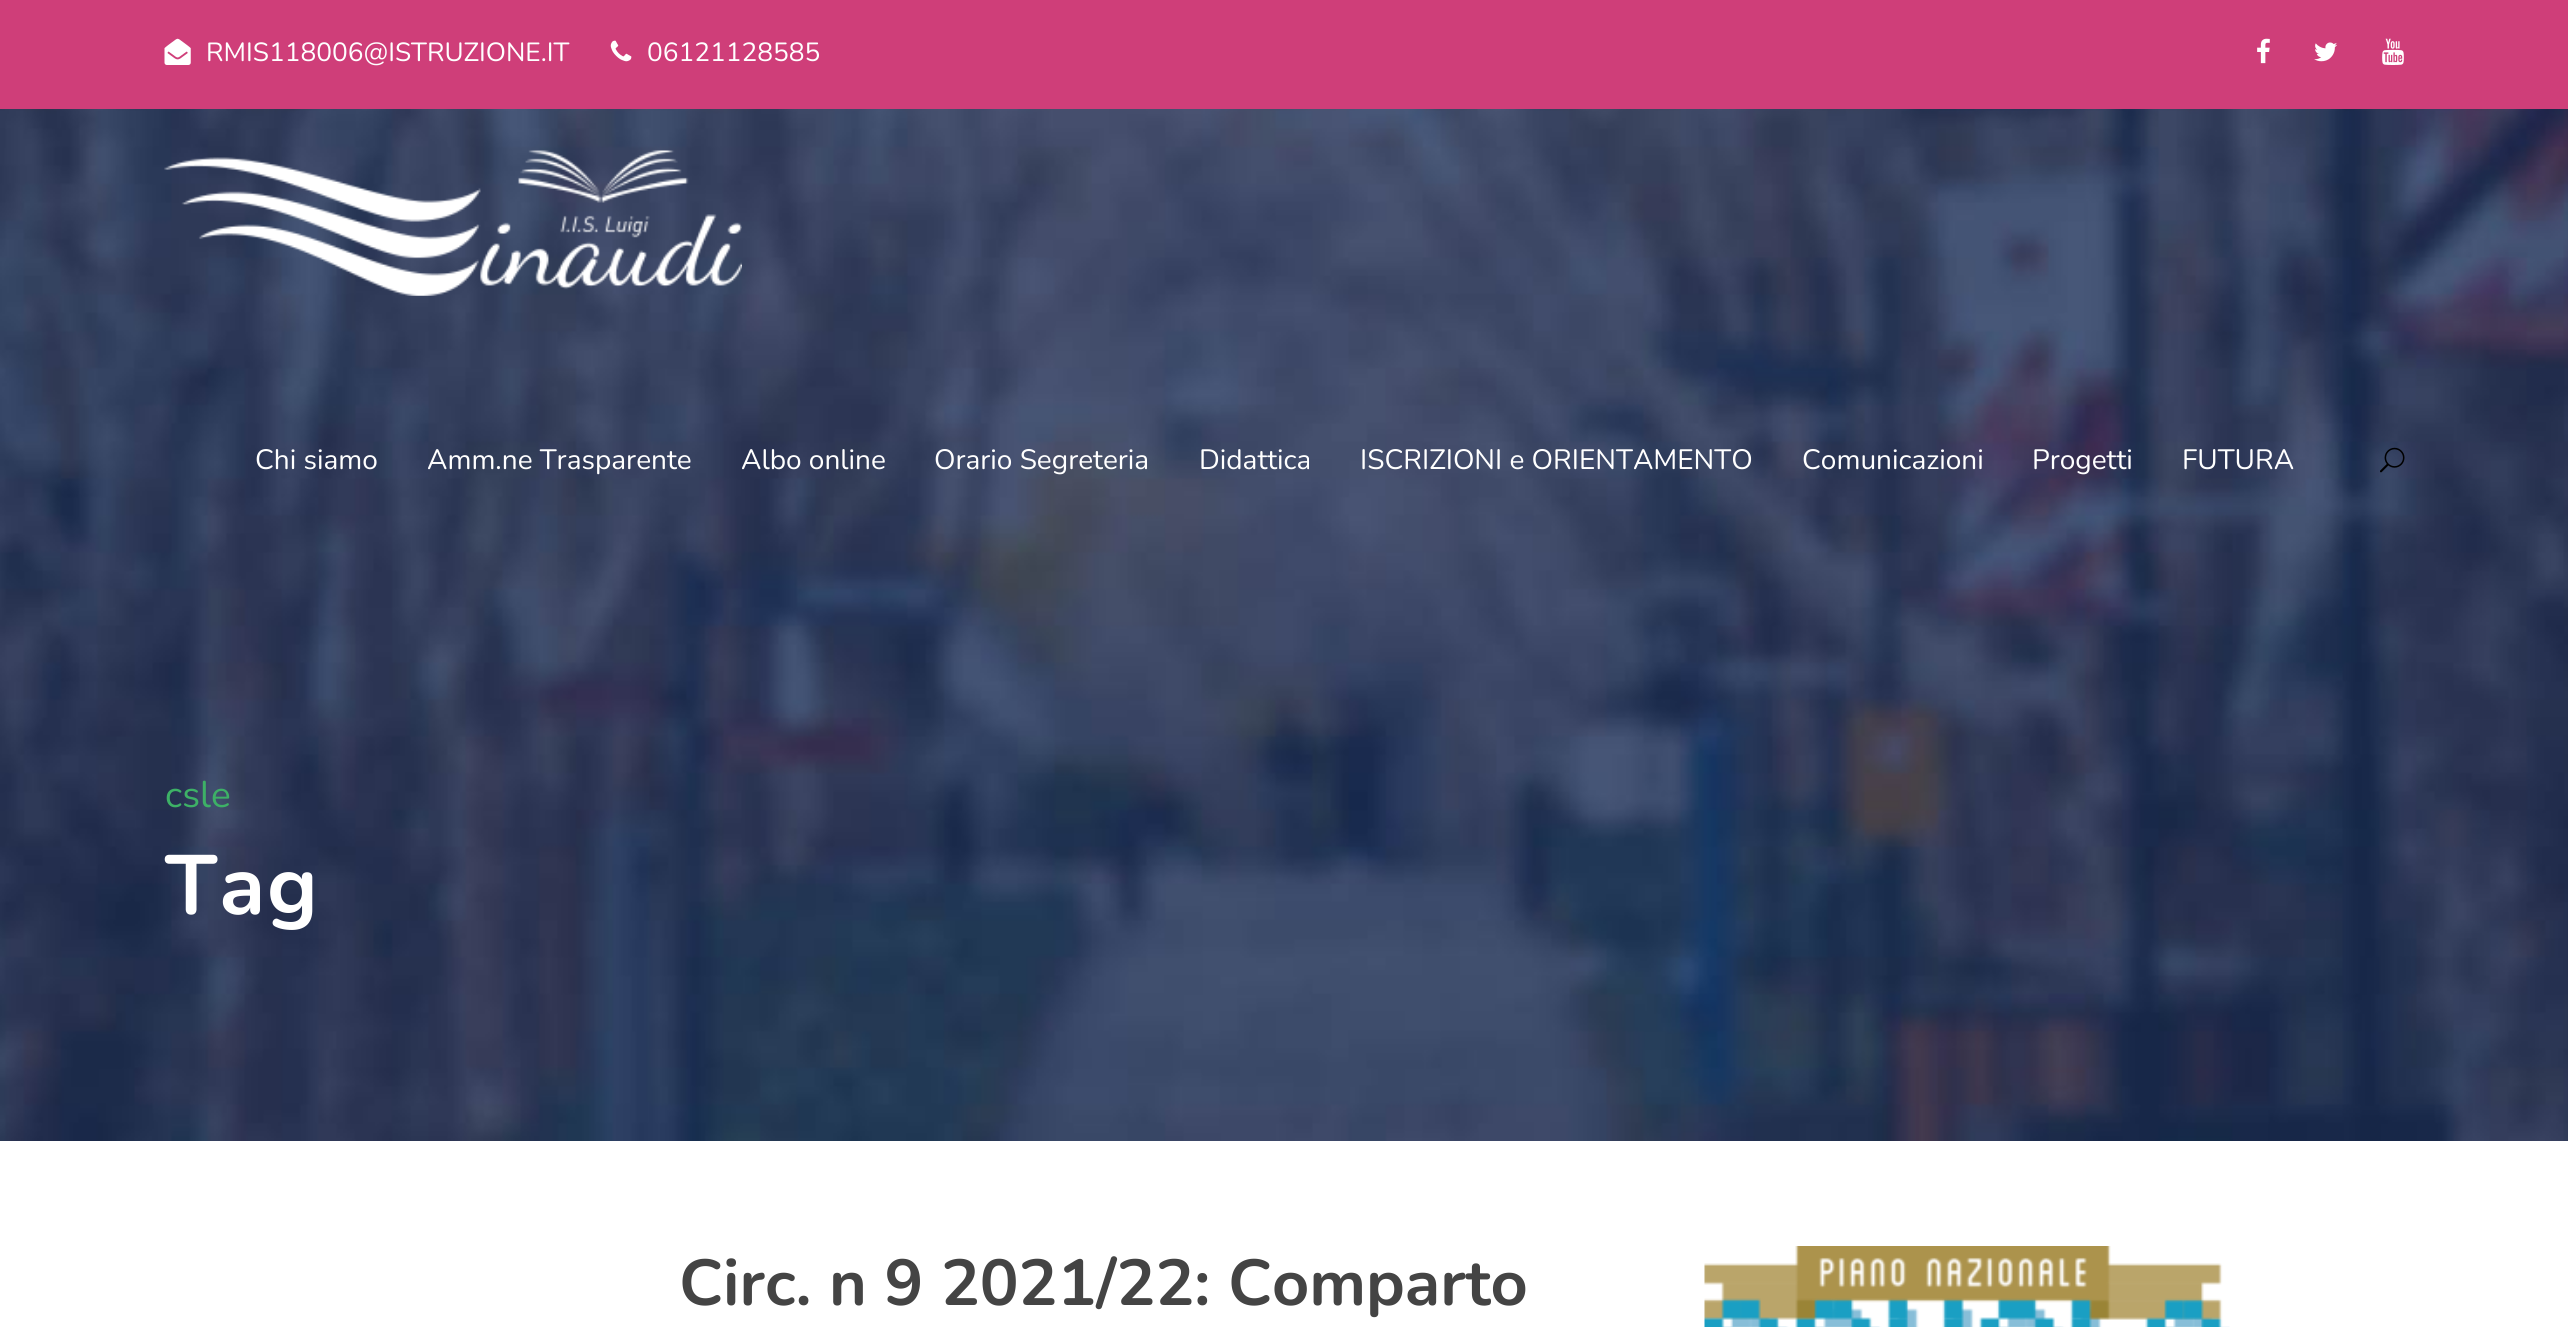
import math
import cairo

surface = cairo.ImageSurface(cairo.FORMAT_RGB24, 2568, 1327)
c = cairo.Context(surface)
options = cairo.FontOptions()
options.set_hint_metrics(cairo.HINT_METRICS_OFF)
options.set_hint_style(cairo.HINT_STYLE_NONE)
c.set_font_options(options)
c.set_miter_limit(4)
def C(code):
 c.set_source_rgb(*(v / 255 for v in bytes.fromhex(code[-6:])))
def F(family, size, italic, bold):
 c.select_font_face(family, cairo.FONT_SLANT_ITALIC if italic else cairo.FONT_SLANT_NORMAL, cairo.FONT_WEIGHT_BOLD if bold else cairo.FONT_WEIGHT_NORMAL)
 c.set_font_size(size)
def T(x, y, s):
 c.move_to(x, y)
 c.show_text(s)
def L(x, y, s, letter, word):
 c.move_to(x, y)
 for ch in s:
  c.show_text(ch)
  c.rel_move_to(letter + word * (ch == ' '), 0)
def R(x, y, w, h):
 c.rectangle(x, y, w, h)
 c.fill()
def I(path, x, y, w, h):
 c.save()
 c.set_source_surface(cairo.ImageSurface.create_from_png(path), x, y)
 c.rectangle(x, y, w, h)
 c.fill()
 c.restore()
C('ffffff')
c.paint()
C('cf3e79')
R(0,0,2568,109)
I('1.png',164,38,27,27)
F('Nunito',26.25,0,0)
C('ffffff')
T(206,61,'RMIS118006@ISTRUZIONE.IT')
I('2.png',610,40,22,22)
T(647,61,'06121128585')
I('3.png',2257,38,13,26)
I('4.png',2314,42,24,20)
I('5.png',2382,38,22,27)
I('8.png',0,109,2568,1032)
I('6.png',164,150,578,146)
F('Nunito',28,0,0)
T(255,469,'Chi siamo')
T(427,469,'Amm.ne Trasparente')
T(741,469,'Albo online')
T(934,469,'Orario Segreteria')
T(1199,469,'Didattica')
T(1360,469,'ISCRIZIONI e ORIENTAMENTO')
T(1802,469,'Comunicazioni')
T(2032,469,'Progetti')
T(2182,469,'FUTURA')
I('7.png',2380,447,25,26)
F('Nunito',37,0,0)
C('3db166')
T(165,807,'csle')
F('Nunito',84,0,1)
C('ffffff')
L(165,914,'Tag',2,0)
F('Nunito',64.75,0,1)
C('444444')
T(679,1305,'Circ. n 9 2021/22: Comparto')
I('9.png',1704,1246,526,81)
surface.write_to_png('o.png')
